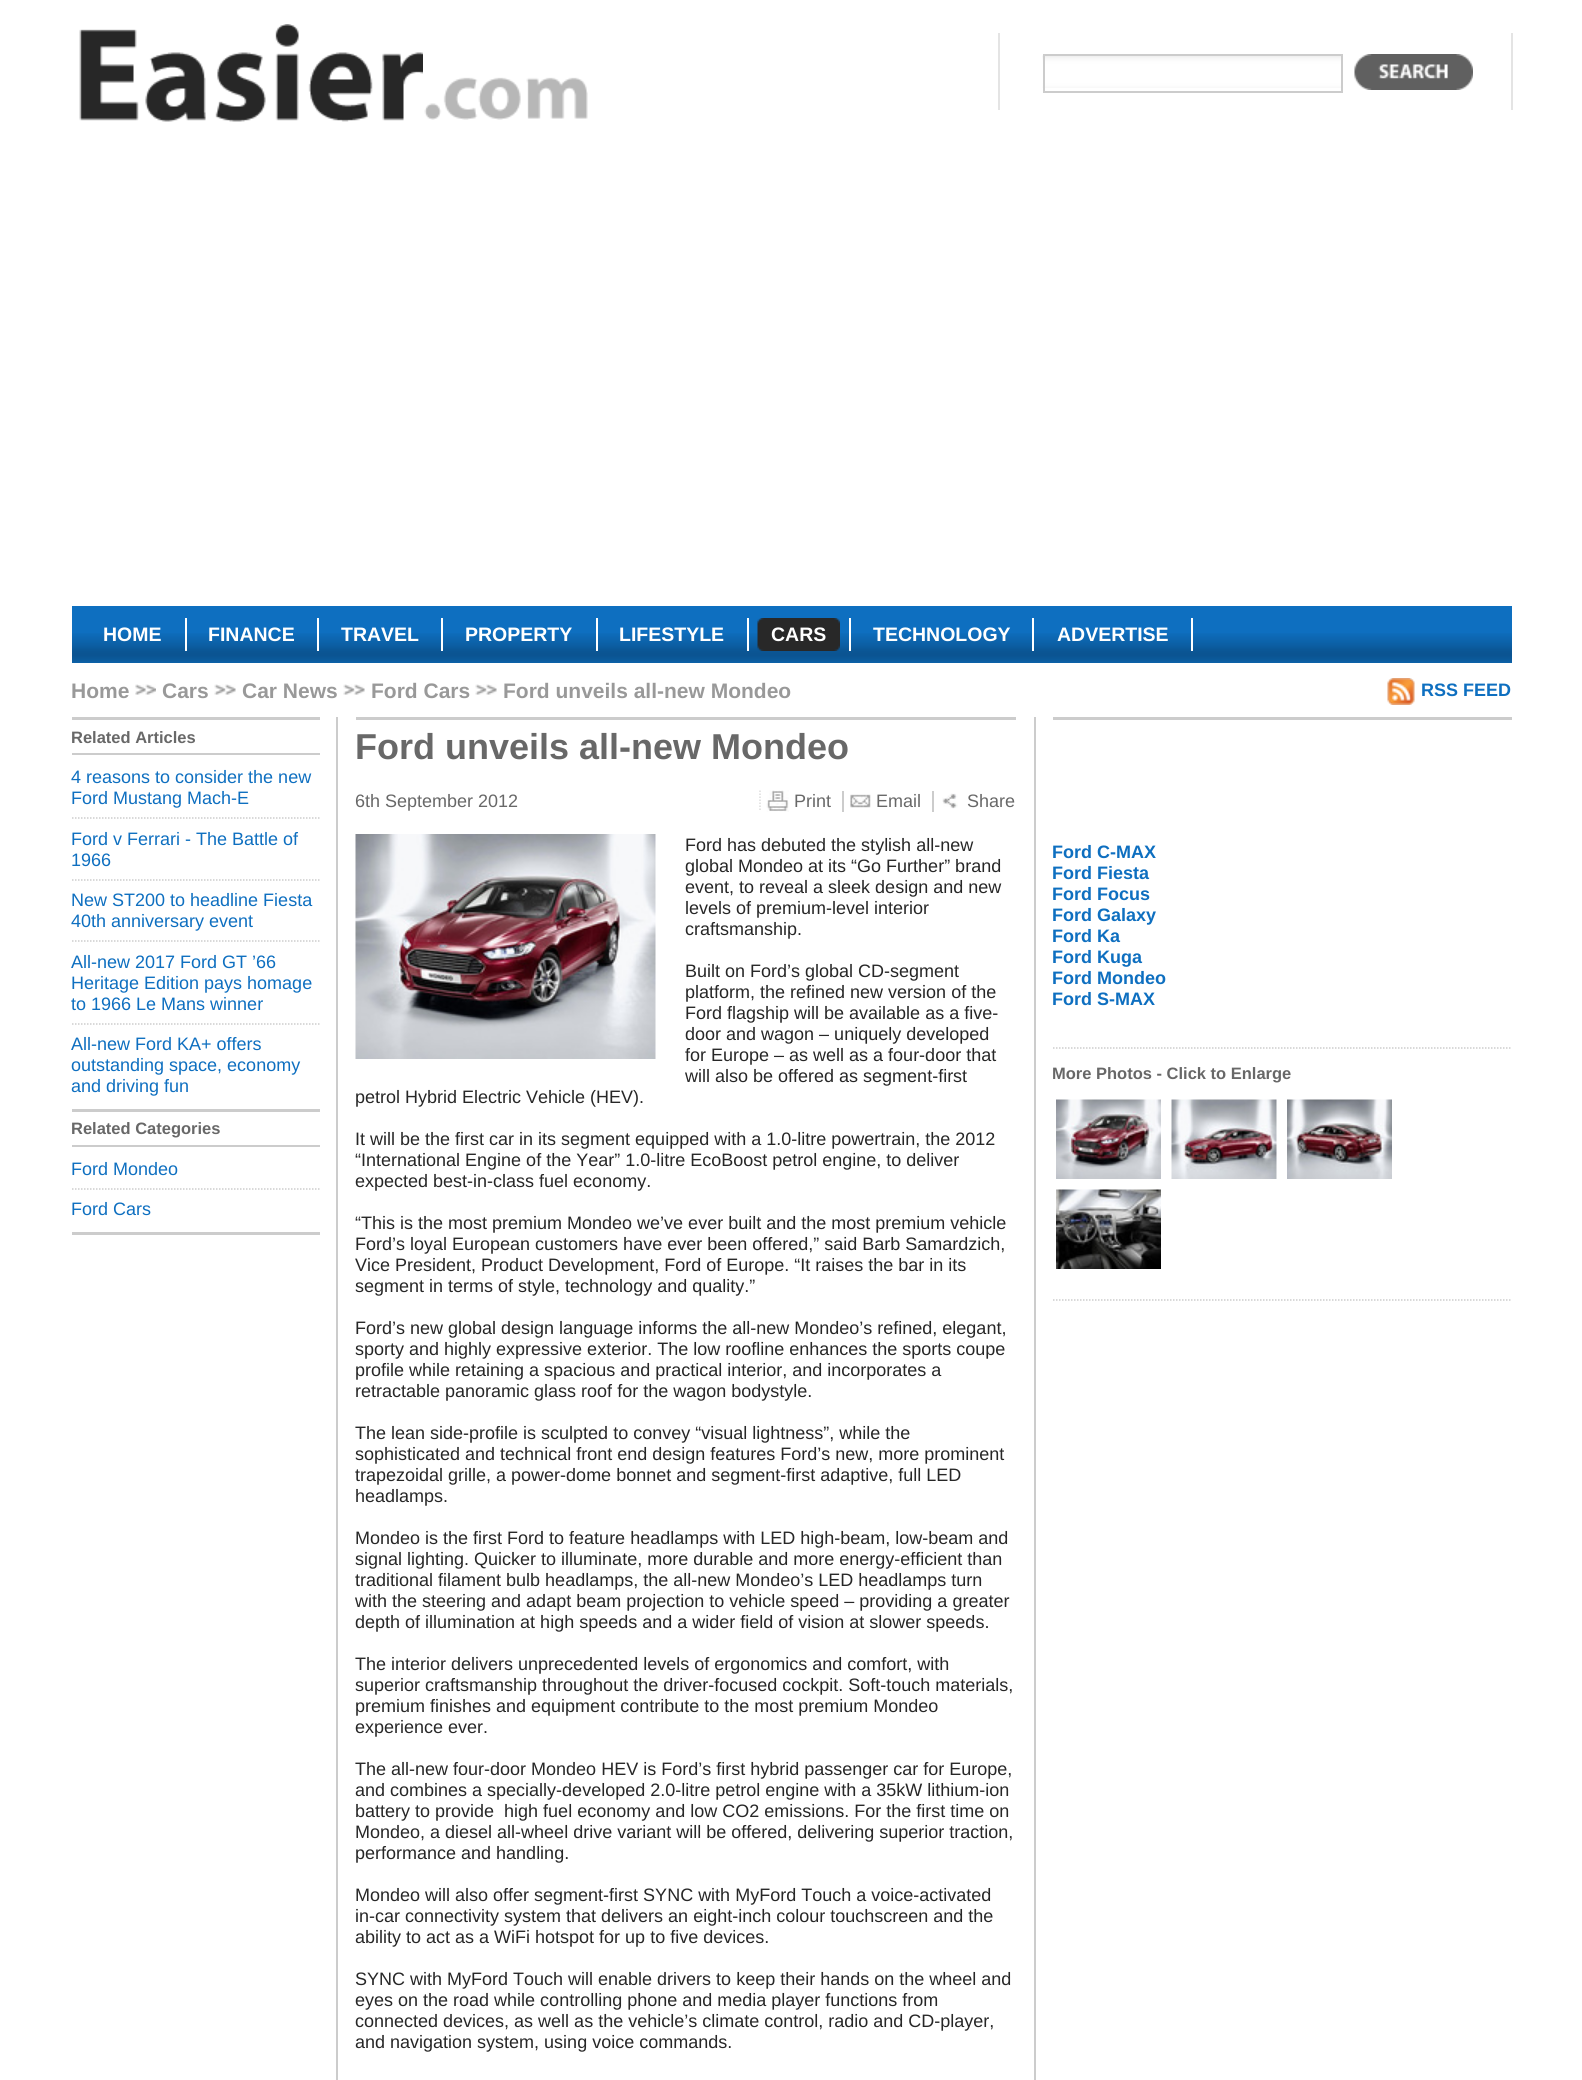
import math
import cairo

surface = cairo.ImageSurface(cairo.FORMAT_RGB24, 1582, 2080)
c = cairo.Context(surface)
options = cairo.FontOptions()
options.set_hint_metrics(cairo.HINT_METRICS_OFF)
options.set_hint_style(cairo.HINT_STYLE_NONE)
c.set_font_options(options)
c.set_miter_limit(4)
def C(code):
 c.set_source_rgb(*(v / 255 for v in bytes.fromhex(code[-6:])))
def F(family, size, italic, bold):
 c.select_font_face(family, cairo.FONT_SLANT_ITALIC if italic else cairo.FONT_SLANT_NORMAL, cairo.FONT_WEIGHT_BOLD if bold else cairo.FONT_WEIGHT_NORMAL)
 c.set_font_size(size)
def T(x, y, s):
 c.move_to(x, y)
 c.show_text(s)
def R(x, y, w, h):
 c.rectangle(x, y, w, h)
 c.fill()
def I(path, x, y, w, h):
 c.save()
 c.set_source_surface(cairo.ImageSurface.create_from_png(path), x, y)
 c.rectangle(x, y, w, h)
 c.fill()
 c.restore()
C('ffffff')
c.paint()
I('1.png',424,77,164,43)
I('2.png',79,24,344,98)
C('e4e4e4')
R(1511,33,2,77)
R(998,33,2,77)
I('3.png',1042,55,299,33)
c.rectangle(1044,55,298,37)
C('cccccc')
c.stroke()
I('4.png',1354,54,119,36)
C('0e6fc0')
R(72,606,1440,57)
I('5.png',72,633,1440,30)
C('ffffff')
R(185,618,2,33)
F('Liberation Sans',19.5,0,1)
T(103,641,'HOME')
R(317,618,2,33)
T(208,641,'FINANCE')
R(441,618,2,33)
T(341,641,'TRAVEL')
R(596,618,2,33)
T(465,641,'PROPERTY')
R(747,618,2,33)
T(619,641,'LIFESTYLE')
R(849,618,2,33)
I('6.png',757,618,14,33)
C('282828')
R(771,618,56,33)
C('ffffff')
T(771,641,'CARS')
I('7.png',827,618,13,33)
R(1032,618,2,33)
T(873,641,'TECHNOLOGY')
R(1191,618,2,33)
T(1057,641,'ADVERTISE')
F('Liberation Sans',21,0,1)
C('999999')
T(71,698,'Home')
I('8.png',135,684,21,11)
T(162,698,'Cars')
I('9.png',214,684,22,11)
T(242,698,'Car News')
I('9.png',343,684,22,11)
T(371,698,'Ford Cars')
I('9.png',475,684,22,11)
T(503,698,'Ford unveils all-new Mondeo')
I('10.png',1387,678,28,27)
F('Liberation Sans',18,0,1)
C('0e6fc0')
T(1421,696,'RSS FEED')
C('cccccc')
R(72,717,248,3)
R(72,753,248,2)
F('Liberation Sans',16.5,0,1)
C('686868')
T(71,743,'Related Articles')
c.new_path()
c.move_to(72,818)
c.line_to(319.5,818)
C('cccccc')
c.set_line_width(1.5)
c.set_dash([1.5,1.5])
c.stroke()
F('Liberation Sans',18,0,0)
C('0e6fc0')
T(71,783,'4 reasons to consider the new')
T(71,804,'Ford Mustang Mach-E')
c.new_path()
c.move_to(72,880)
c.line_to(319.5,880)
C('cccccc')
c.stroke()
C('0e6fc0')
T(71,845,'Ford v Ferrari - The Battle of')
T(71,866,'1966')
c.new_path()
c.move_to(72,941)
c.line_to(319.5,941)
C('cccccc')
c.stroke()
C('0e6fc0')
T(71,906,'New ST200 to headline Fiesta')
T(71,927,'40th anniversary event')
c.new_path()
c.move_to(72,1024)
c.line_to(319.5,1024)
C('cccccc')
c.stroke()
C('0e6fc0')
T(71,968,'All-new 2017 Ford GT ’66')
T(71,989,'Heritage Edition pays homage')
T(71,1010,'to 1966 Le Mans winner')
T(71,1050,'All-new Ford KA+ offers')
T(71,1071,'outstanding space, economy')
T(71,1092,'and driving fun')
C('cccccc')
R(72,1109,248,3)
R(72,1145,248,2)
F('Liberation Sans',16.5,0,1)
C('686868')
T(71,1134,'Related Categories')
C('cccccc')
R(72,1232,248,3)
c.new_path()
c.move_to(72,1189)
c.line_to(319.5,1189)
c.stroke()
F('Liberation Sans',18,0,0)
C('0e6fc0')
T(71,1175,'Ford Mondeo')
T(71,1215,'Ford Cars')
C('cccccc')
R(1034,717,2,1363)
R(336,717,2,1363)
R(356,717,660,3)
F('Liberation Sans',36,0,1)
C('686868')
T(355,759,'Ford unveils all-new Mondeo')
F('Liberation Sans',18,0,0)
T(355,807,'6th September 2012')
I('11.png',766,790,23,22)
T(794,807,'Print')
c.new_path()
c.move_to(760,790.5)
c.line_to(760,811.5)
C('dddddd')
c.stroke()
I('12.png',850,794,21,14)
C('686868')
T(876,807,'Email')
C('cccccc')
R(842,791,2,21)
I('13.png',942,793,16,16)
C('686868')
T(967,807,'Share')
C('cccccc')
R(932,791,2,21)
I('14.png',355,834,301,225)
C('272727')
T(685,851,'Ford has debuted the stylish all-new')
T(685,872,'global Mondeo at its “Go Further” brand')
T(685,893,'event, to reveal a sleek design and new')
T(685,914,'levels of premium-level interior')
T(685,935,'craftsmanship.')
T(685,977,'Built on Ford’s global CD-segment')
T(685,998,'platform, the refined new version of the')
T(685,1019,'Ford flagship will be available as a five-')
T(685,1040,'door and wagon – uniquely developed')
T(685,1061,'for Europe – as well as a four-door that')
T(685,1082,'will also be offered as segment-first')
T(355,1103,'petrol Hybrid Electric Vehicle (HEV).')
T(355,1145,'It will be the first car in its segment equipped with a 1.0-litre powertrain, the 2012')
T(355,1166,'“International Engine of the Year” 1.0-litre EcoBoost petrol engine, to deliver')
T(355,1187,'expected best-in-class fuel economy.')
T(355,1229,'“This is the most premium Mondeo we’ve ever built and the most premium vehicle')
T(355,1250,'Ford’s loyal European customers have ever been offered,” said Barb Samardzich,')
T(355,1271,'Vice President, Product Development, Ford of Europe. “It raises the bar in its')
T(355,1292,'segment in terms of style, technology and quality.”')
T(355,1334,'Ford’s new global design language informs the all-new Mondeo’s refined, elegant,')
T(355,1355,'sporty and highly expressive exterior. The low roofline enhances the sports coupe')
T(355,1376,'profile while retaining a spacious and practical interior, and incorporates a')
T(355,1397,'retractable panoramic glass roof for the wagon bodystyle.')
T(355,1439,'The lean side-profile is sculpted to convey “visual lightness”, while the')
T(355,1460,'sophisticated and technical front end design features Ford’s new, more prominent')
T(355,1481,'trapezoidal grille, a power-dome bonnet and segment-first adaptive, full LED')
T(355,1502,'headlamps.')
T(355,1544,'Mondeo is the first Ford to feature headlamps with LED high-beam, low-beam and')
T(355,1565,'signal lighting. Quicker to illuminate, more durable and more energy-efficient than')
T(355,1586,'traditional filament bulb headlamps, the all-new Mondeo’s LED headlamps turn')
T(355,1607,'with the steering and adapt beam projection to vehicle speed – providing a greater')
T(355,1628,'depth of illumination at high speeds and a wider field of vision at slower speeds.')
T(355,1670,'The interior delivers unprecedented levels of ergonomics and comfort, with')
T(355,1691,'superior craftsmanship throughout the driver-focused cockpit. Soft-touch materials,')
T(355,1712,'premium finishes and equipment contribute to the most premium Mondeo')
T(355,1733,'experience ever.')
T(355,1775,'The all-new four-door Mondeo HEV is Ford’s first hybrid passenger car for Europe,')
T(355,1796,'and combines a specially-developed 2.0-litre petrol engine with a 35kW lithium-ion')
T(355,1817,'battery to provide  high fuel economy and low CO2 emissions. For the first time on')
T(355,1838,'Mondeo, a diesel all-wheel drive variant will be offered, delivering superior traction,')
T(355,1859,'performance and handling.')
T(355,1901,'Mondeo will also offer segment-first SYNC with MyFord Touch a voice-activated')
T(355,1922,'in-car connectivity system that delivers an eight-inch colour touchscreen and the')
T(355,1943,'ability to act as a WiFi hotspot for up to five devices.')
T(355,1985,'SYNC with MyFord Touch will enable drivers to keep their hands on the wheel and')
T(355,2006,'eyes on the road while controlling phone and media player functions from')
T(355,2027,'connected devices, as well as the vehicle’s climate control, radio and CD-player,')
T(355,2048,'and navigation system, using voice commands.')
C('cccccc')
R(1053,717,459,3)
c.new_path()
c.move_to(1053,1048)
c.line_to(1512,1048)
c.stroke()
F('Liberation Sans',18,0,1)
C('0e6fc0')
T(1052,858,'Ford C-MAX')
T(1052,879,'Ford Fiesta')
T(1052,900,'Ford Focus')
T(1052,921,'Ford Galaxy')
T(1052,942,'Ford Ka')
T(1052,963,'Ford Kuga')
T(1052,984,'Ford Mondeo')
T(1052,1005,'Ford S-MAX')
c.new_path()
c.move_to(1053,1300)
c.line_to(1512,1300)
C('cccccc')
c.stroke()
F('Liberation Sans',16.5,0,1)
C('686868')
T(1052,1079,'More Photos - Click to Enlarge')
I('15.png',1056,1099,105,80)
I('16.png',1171,1099,106,80)
I('17.png',1287,1099,105,80)
I('18.png',1056,1189,105,80)
surface.write_to_png('o.png')
